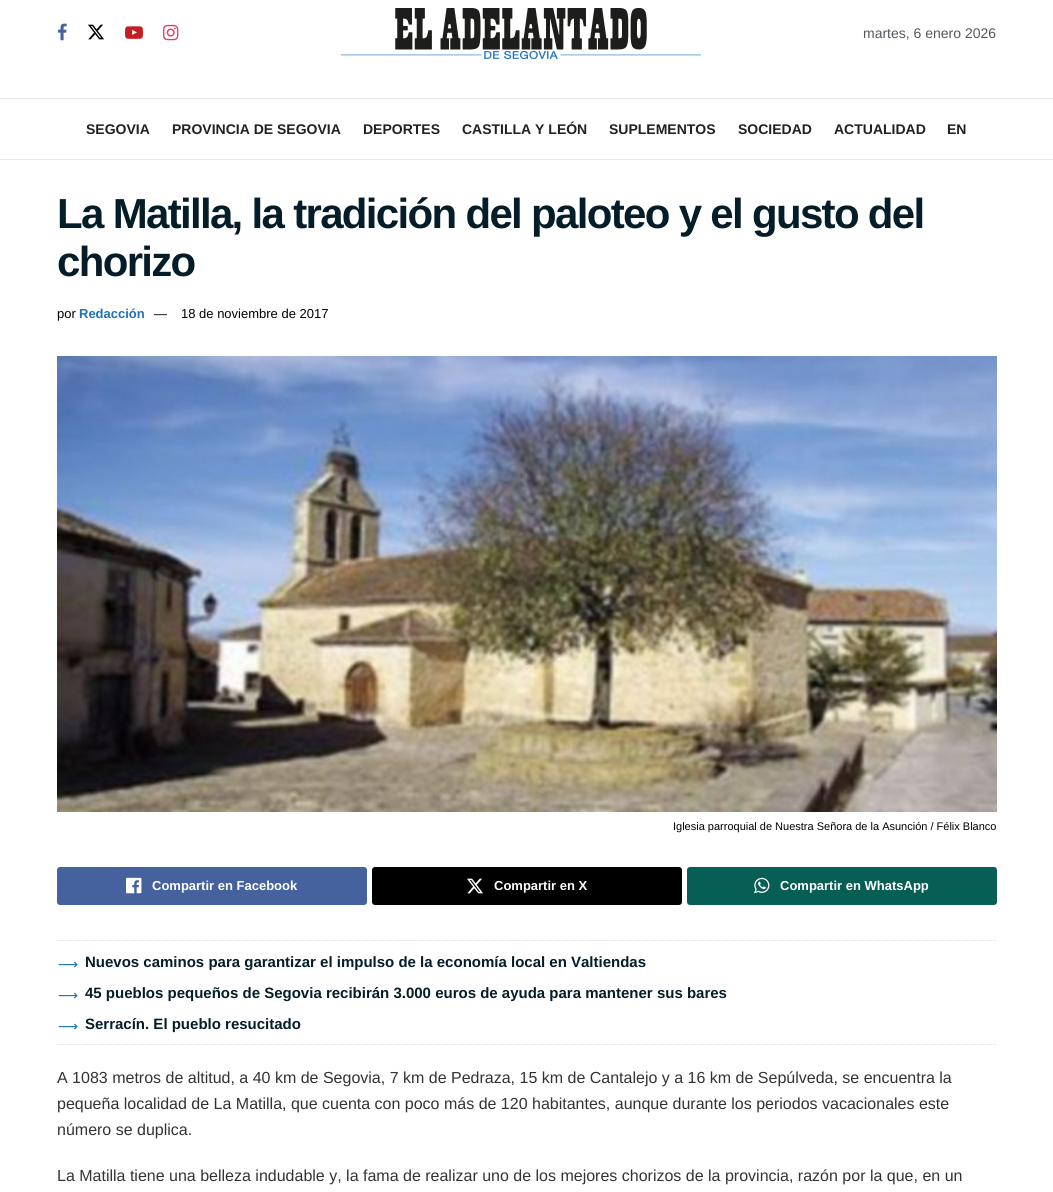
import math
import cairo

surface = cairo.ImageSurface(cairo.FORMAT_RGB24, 1053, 1192)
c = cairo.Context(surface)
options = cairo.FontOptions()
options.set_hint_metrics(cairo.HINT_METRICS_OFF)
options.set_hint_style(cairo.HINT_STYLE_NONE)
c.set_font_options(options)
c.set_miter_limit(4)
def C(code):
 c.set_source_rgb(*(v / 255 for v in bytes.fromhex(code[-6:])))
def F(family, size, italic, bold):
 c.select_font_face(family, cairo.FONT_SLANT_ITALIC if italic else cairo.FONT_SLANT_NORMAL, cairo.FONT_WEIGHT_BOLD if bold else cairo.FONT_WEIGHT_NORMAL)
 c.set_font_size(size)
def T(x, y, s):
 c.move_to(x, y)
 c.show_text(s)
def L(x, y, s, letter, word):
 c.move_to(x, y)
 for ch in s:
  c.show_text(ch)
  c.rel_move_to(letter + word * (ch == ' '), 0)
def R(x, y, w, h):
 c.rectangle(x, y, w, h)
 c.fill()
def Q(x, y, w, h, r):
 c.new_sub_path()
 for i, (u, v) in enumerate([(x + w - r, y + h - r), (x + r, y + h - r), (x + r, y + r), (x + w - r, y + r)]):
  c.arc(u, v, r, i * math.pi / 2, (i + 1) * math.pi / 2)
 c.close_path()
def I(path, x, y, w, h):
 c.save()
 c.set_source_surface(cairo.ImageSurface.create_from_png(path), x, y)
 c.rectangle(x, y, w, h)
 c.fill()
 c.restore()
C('ffffff')
c.paint()
I('1.png',57,23,10,18)
I('2.png',88,24,16,16)
I('3.png',125,26,18,13)
I('4.png',163,24,16,17)
I('5.png',341,8,360,51)
F('Liberation Sans',14,0,0)
C('53585c')
T(863,38,'martes, 6 enero 2026')
C('e8e8e8')
R(0,98,1053,1)
R(0,159,1053,1)
F('Liberation Sans',14,0,1)
C('212121')
T(86,134,'SEGOVIA')
T(172,134,'PROVINCIA DE SEGOVIA')
T(363,134,'DEPORTES')
T(462,134,'CASTILLA Y LEÓN')
T(609,134,'SUPLEMENTOS')
T(738,134,'SOCIEDAD')
T(834,134,'ACTUALIDAD')
T(947,134,'EN')
F('Liberation Sans',42,0,1)
C('041d28')
L(57,228,'La Matilla, la tradición del paloteo y el gusto del',-1.68,0)
L(57,276,'chorizo',-1.68,0)
F('Liberation Sans',13,0,0)
C('000000')
T(57,318,'por')
F('Liberation Sans',13,0,1)
C('1e72bd')
T(79,318,'Redacción')
F('Liberation Sans',13,0,0)
C('000000')
T(154,318,'—')
T(181,318,'18 de noviembre de 2017')
I('6.png',57,356,940,456)
F('Liberation Sans',11,0,0)
T(673,830,'Iglesia parroquial de Nuestra Señora de la Asunción / Félix Blanco')
C('45629f')
Q(57,867,310,38,3)
c.fill()
I('7.png',126,877,16,17)
F('Liberation Sans',13,0,1)
C('ffffff')
T(152,890,'Compartir en Facebook')
C('000000')
Q(372,867,310,38,3)
c.fill()
I('8.png',467,878,16,16)
C('ffffff')
T(494,890,'Compartir en X')
C('075e54')
Q(687,867,310,38,3)
c.fill()
I('9.png',754,877,16,17)
C('ffffff')
T(780,890,'Compartir en WhatsApp')
c.new_path()
c.move_to(57,940.5)
c.line_to(997,940.5)
C('e0e0e0')
c.set_line_width(1)
c.set_dash([1,1])
c.stroke()
c.new_path()
c.move_to(57,1044.5)
c.line_to(997,1044.5)
c.stroke()
F('DejaVu Sans',14,0,0)
C('1e72bd')
T(58,969,'⟶')
F('Liberation Sans',15,0,1)
C('041d28')
T(85,967,'Nuevos caminos para garantizar el impulso de la economía local en Valtiendas')
F('DejaVu Sans',14,0,0)
C('1e72bd')
T(58,1000,'⟶')
F('Liberation Sans',15,0,1)
C('041d28')
T(85,998,'45 pueblos pequeños de Segovia recibirán 3.000 euros de ayuda para mantener sus bares')
F('DejaVu Sans',14,0,0)
C('1e72bd')
T(58,1031,'⟶')
F('Liberation Sans',15,0,1)
C('041d28')
T(85,1029,'Serracín. El pueblo resucitado')
F('Liberation Sans',16,0,0)
C('333333')
T(57,1083,'A 1083 metros de altitud, a 40 km de Segovia, 7 km de Pedraza, 15 km de Cantalejo y a 16 km de Sepúlveda, se encuentra la')
T(57,1109,'pequeña localidad de La Matilla, que cuenta con poco más de 120 habitantes, aunque durante los periodos vacacionales este')
T(57,1135,'número se duplica.')
T(57,1181,'La Matilla tiene una belleza indudable y, la fama de realizar uno de los mejores chorizos de la provincia, razón por la que, en un')
surface.write_to_png('o.png')
